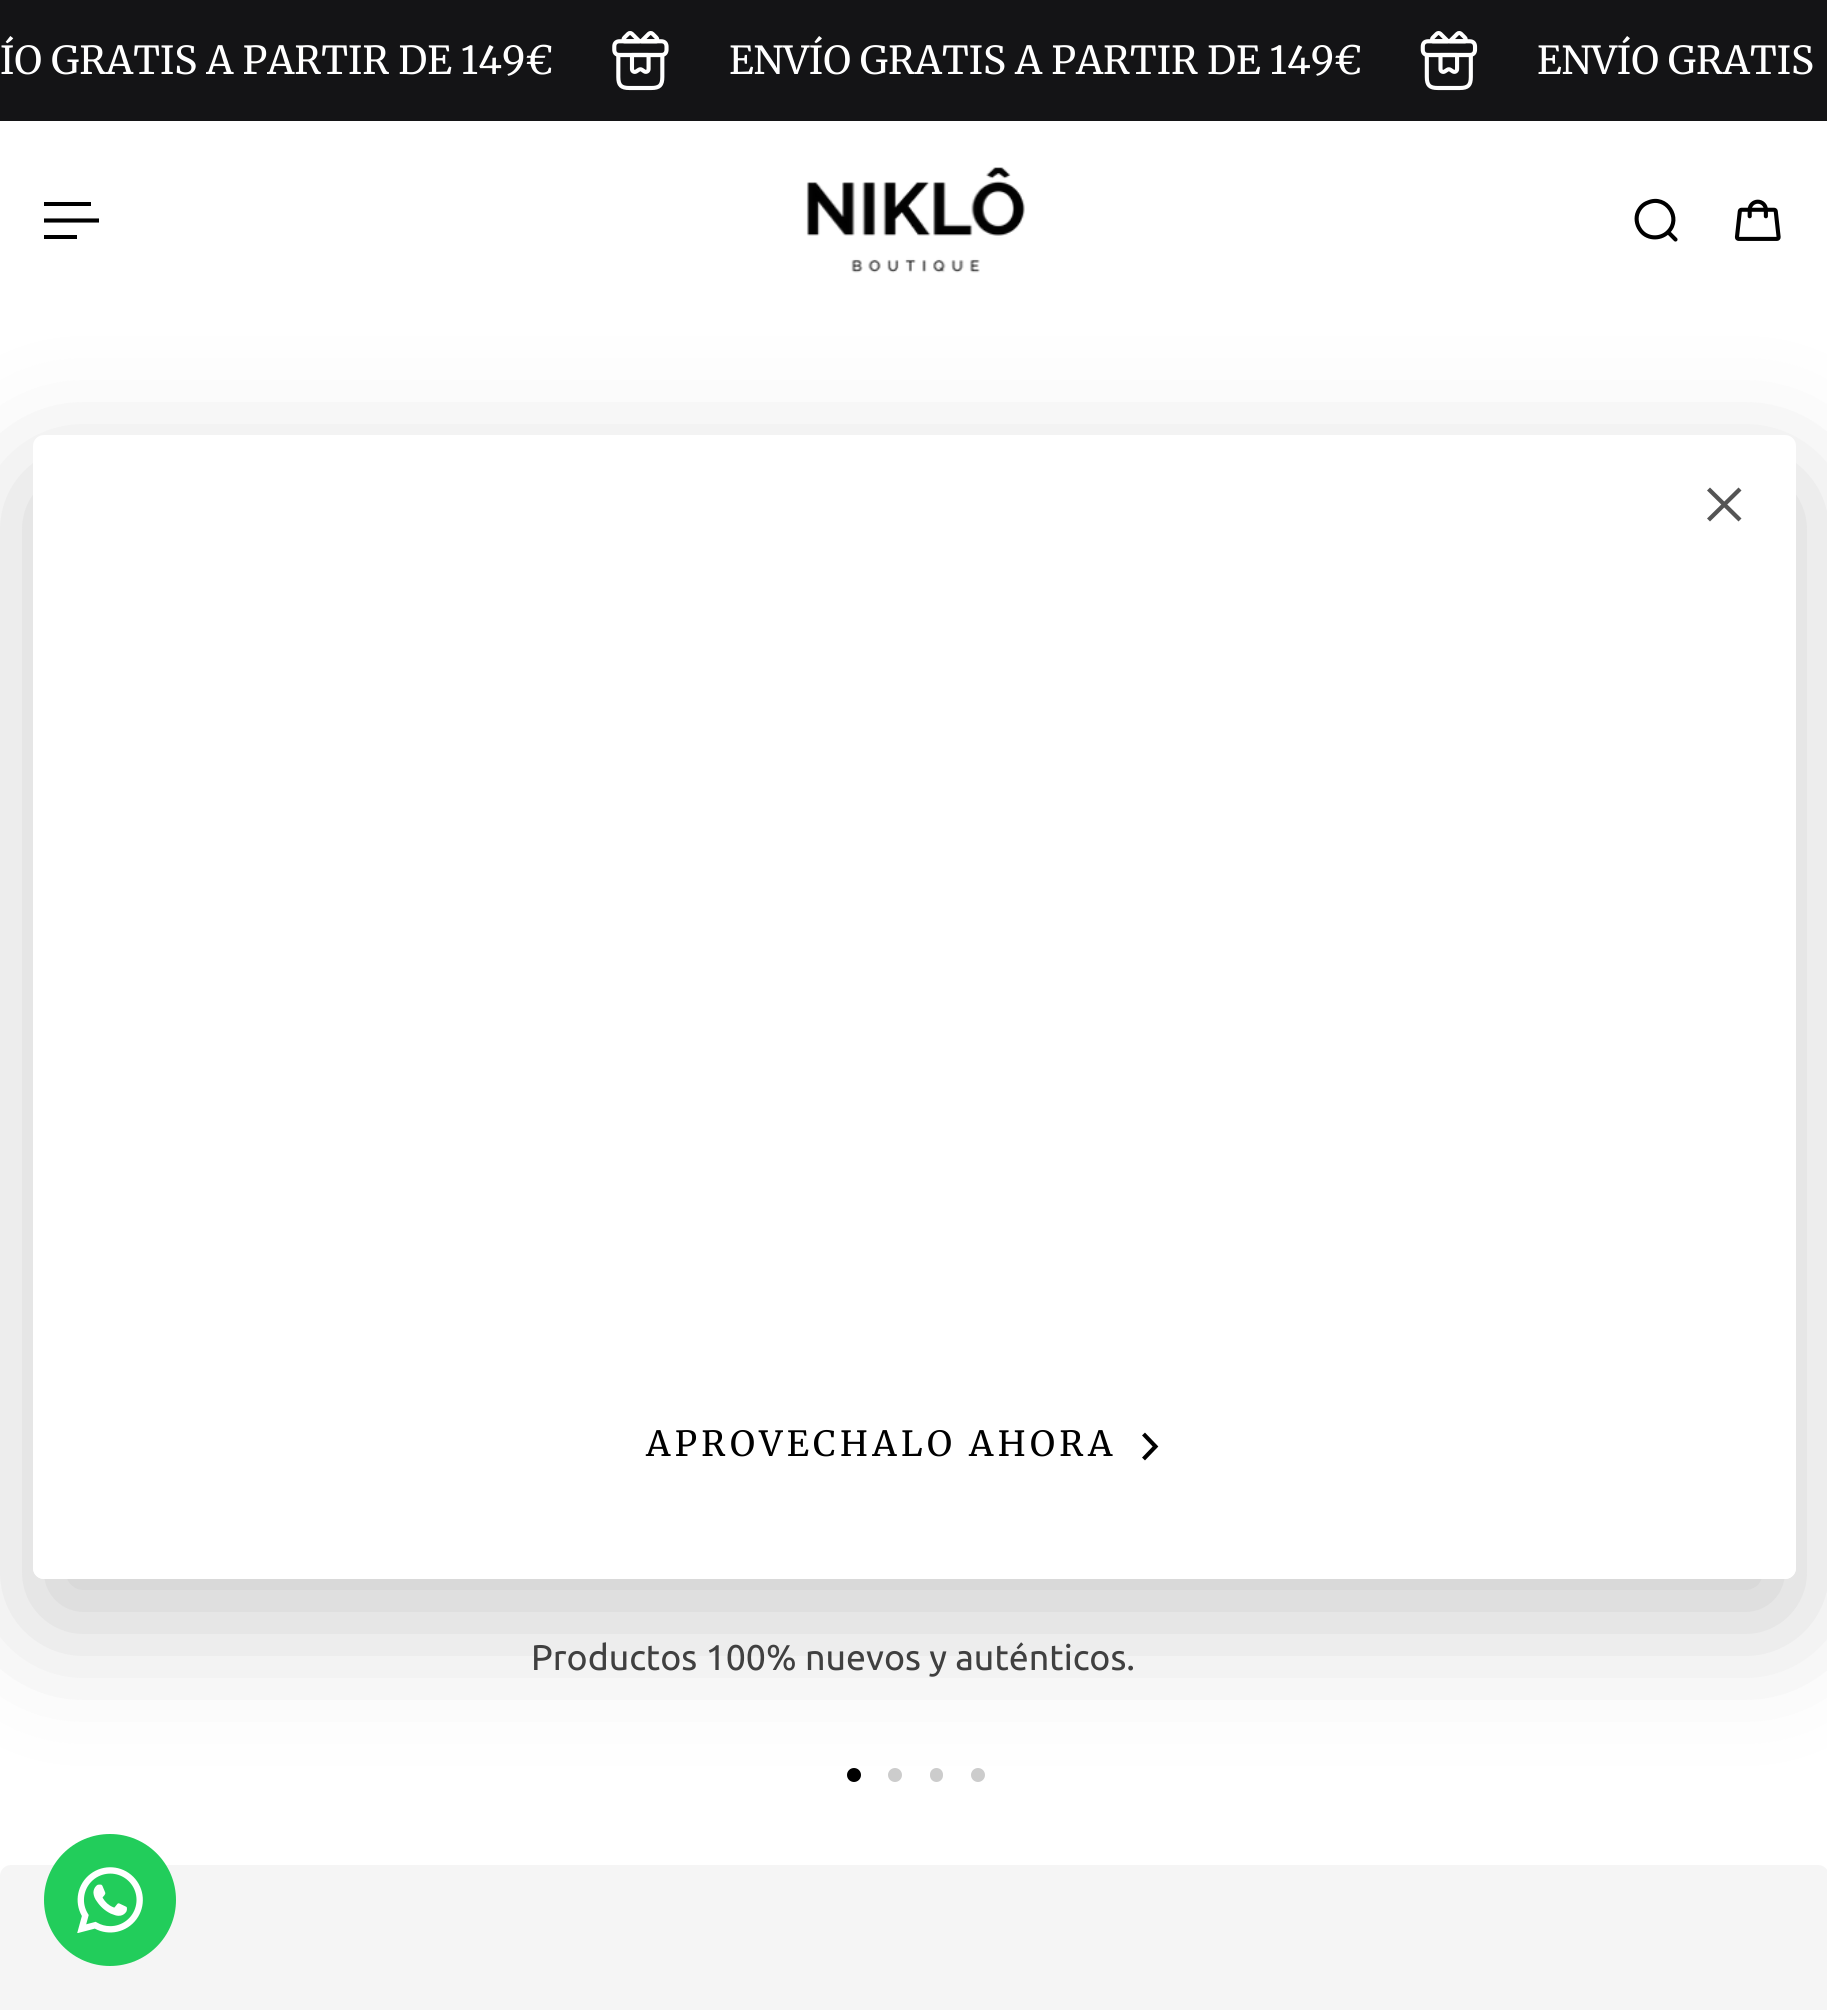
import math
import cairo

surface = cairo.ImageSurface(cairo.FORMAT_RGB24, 1827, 2010)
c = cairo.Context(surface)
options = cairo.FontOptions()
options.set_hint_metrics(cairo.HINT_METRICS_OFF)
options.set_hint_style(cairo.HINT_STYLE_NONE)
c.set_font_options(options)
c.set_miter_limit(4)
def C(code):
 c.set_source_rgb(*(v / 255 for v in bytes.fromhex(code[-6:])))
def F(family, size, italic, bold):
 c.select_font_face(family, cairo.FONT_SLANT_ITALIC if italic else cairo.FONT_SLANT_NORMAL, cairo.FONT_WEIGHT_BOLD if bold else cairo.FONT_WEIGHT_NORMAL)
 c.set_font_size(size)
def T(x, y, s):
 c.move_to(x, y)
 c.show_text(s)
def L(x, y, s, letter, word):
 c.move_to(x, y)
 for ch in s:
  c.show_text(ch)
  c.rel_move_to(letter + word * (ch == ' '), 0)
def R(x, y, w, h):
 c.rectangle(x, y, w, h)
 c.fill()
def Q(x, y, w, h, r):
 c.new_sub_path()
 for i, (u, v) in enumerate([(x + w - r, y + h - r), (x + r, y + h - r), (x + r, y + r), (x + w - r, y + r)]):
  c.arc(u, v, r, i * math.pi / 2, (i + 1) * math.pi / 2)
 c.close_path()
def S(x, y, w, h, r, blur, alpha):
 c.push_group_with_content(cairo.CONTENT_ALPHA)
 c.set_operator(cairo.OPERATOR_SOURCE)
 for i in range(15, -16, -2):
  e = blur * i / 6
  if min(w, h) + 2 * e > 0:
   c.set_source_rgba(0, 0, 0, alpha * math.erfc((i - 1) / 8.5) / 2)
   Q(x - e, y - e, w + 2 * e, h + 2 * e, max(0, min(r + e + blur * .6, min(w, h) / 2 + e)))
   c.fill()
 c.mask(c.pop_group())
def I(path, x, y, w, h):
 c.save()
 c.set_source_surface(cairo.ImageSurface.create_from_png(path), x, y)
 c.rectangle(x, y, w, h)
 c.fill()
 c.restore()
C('ffffff')
c.paint()
C('141416')
R(0,0,1827,121)
F('Merriweather',38.5,0,0)
C('ffffff')
T(0,74,'ÍO GRATIS A PARTIR DE 149€')
I('1.png',612,31,57,60)
T(729,74,'ENVÍO GRATIS A PARTIR DE 149€')
I('2.png',1420,31,58,60)
T(1537,74,'ENVÍO GRATIS')
C('000000')
R(44,202,47,4)
c.save()
c.rectangle(44,193,55,55)
c.clip()
c.new_path()
c.move_to(44,220.5)
c.line_to(100,220.5)
c.set_line_width(4.1)
c.stroke()
c.restore()
R(44,235,33,4)
I('3.png',806,167,219,106)
c.new_path()
c.move_to(1675.5,239.5)
c.line_to(1668,232)
c.move_to(1668,232)
c.curve_to(1682,218.5,1666.5,194.5,1648,202.5)
c.curve_to(1643.5,204,1640,207.5,1638,212)
c.curve_to(1635.5,217.5,1636.5,224.5,1640,229.5)
c.curve_to(1646,239,1660,240,1668,232)
c.close_path()
c.set_line_width(4.1)
c.set_line_cap(cairo.LINE_CAP_ROUND)
c.set_line_join(cairo.LINE_JOIN_ROUND)
c.stroke()
I('4.png',1734,199,47,42)
c.arc(854,1775,7,0,2 * math.pi)
c.fill()
C('cccccc')
c.arc(895,1775,7,0,2 * math.pi)
c.fill()
Q(930,1768,13,14,6.5)
c.fill()
c.arc(978,1775,7,0,2 * math.pi)
c.fill()
C('000000')
S(33,479,1763,1144,11,66,.2)
C('ffffff')
Q(33,435,1763,1144,11)
c.fill()
C('545454')
c.new_path()
c.move_to(1710,487.5)
c.line_to(1741.5,518.5)
c.line_to(1738.5,521.5)
c.line_to(1707,490.5)
c.close_path()
c.fill()
c.new_path()
c.move_to(1707,518.5)
c.line_to(1738.5,487.5)
c.line_to(1741.5,490.5)
c.line_to(1710,521.5)
c.close_path()
c.fill()
C('ffffff')
c.new_path()
c.move_to(33,1315)
c.line_to(1796,1315)
c.line_to(1796,1568)
c.curve_to(1796,1574,1791,1579,1785,1579)
c.line_to(44,1579)
c.curve_to(38,1579,33,1574,33,1568)
c.close_path()
c.fill()
F('Merriweather',34.6,0,0)
C('000000')
L(646,1456,'APROVECHALO AHORA',4.4,0)
c.new_path()
c.move_to(1143.5,1434)
c.line_to(1155.5,1446.5)
c.line_to(1143.5,1459)
c.set_line_cap(cairo.LINE_CAP_BUTT)
c.set_line_join(cairo.LINE_JOIN_MITER)
c.stroke()
F('Ubuntu',35.75,0,0)
C('404040')
T(531,1670,'Productos 100% nuevos y auténticos.')
C('f5f5f5')
Q(0,1865,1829,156,11)
c.fill()
C('22cd5b')
c.arc(110,1900,66,0,2 * math.pi)
c.fill()
I('5.png',77,1867,66,66)
surface.write_to_png('o.png')
